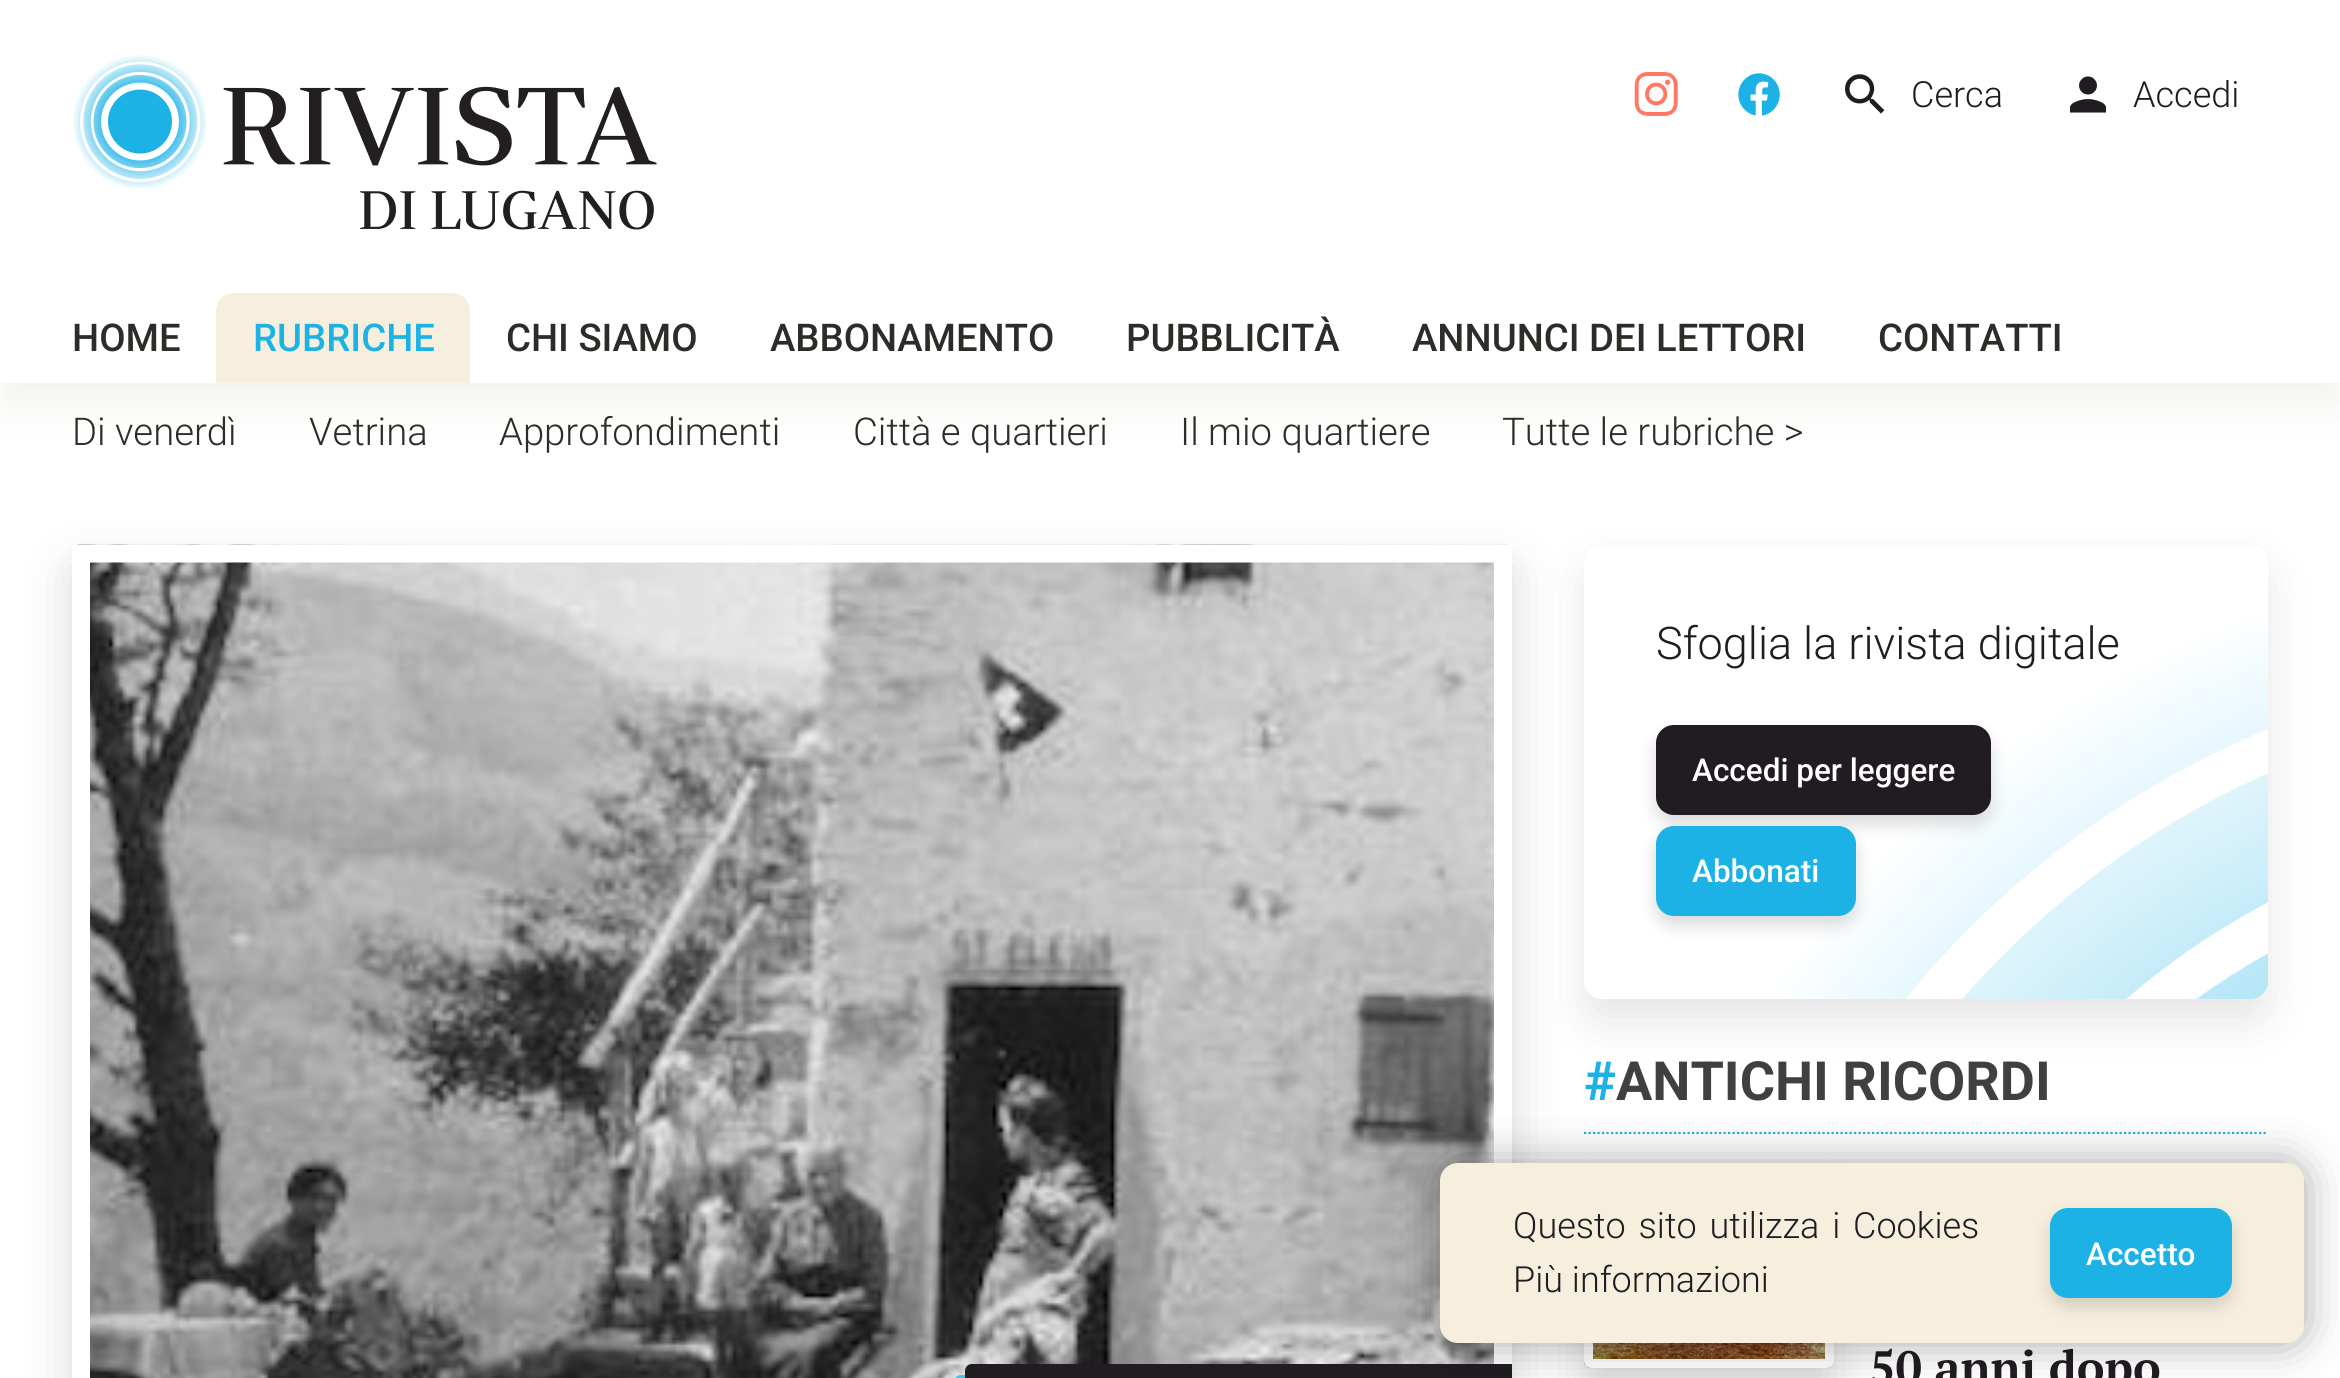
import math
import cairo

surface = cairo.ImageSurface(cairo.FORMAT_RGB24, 2340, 1378)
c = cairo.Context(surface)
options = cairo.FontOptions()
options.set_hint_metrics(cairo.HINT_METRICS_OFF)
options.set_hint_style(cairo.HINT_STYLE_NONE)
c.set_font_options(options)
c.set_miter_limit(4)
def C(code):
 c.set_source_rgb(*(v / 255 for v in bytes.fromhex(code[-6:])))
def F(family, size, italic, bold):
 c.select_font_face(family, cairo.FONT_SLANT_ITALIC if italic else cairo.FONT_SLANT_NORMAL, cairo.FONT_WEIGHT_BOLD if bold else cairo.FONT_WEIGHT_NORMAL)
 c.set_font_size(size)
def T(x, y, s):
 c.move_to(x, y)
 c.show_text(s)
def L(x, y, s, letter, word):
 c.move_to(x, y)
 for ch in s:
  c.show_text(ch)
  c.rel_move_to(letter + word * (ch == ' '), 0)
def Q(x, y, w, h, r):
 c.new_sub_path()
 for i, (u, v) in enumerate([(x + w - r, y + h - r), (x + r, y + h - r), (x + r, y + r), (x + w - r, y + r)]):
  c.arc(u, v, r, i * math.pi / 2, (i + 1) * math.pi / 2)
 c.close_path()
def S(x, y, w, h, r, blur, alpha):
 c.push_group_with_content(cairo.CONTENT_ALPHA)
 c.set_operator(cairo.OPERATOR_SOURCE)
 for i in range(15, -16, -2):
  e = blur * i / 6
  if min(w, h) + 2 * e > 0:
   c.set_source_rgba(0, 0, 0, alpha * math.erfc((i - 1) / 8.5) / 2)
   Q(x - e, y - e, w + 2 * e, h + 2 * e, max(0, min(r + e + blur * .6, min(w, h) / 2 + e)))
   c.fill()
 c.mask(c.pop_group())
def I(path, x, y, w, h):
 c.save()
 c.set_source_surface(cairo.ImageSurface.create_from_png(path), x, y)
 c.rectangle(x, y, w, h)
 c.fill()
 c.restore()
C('ffffff')
c.paint()
c.save()
c.set_fill_rule(cairo.FILL_RULE_EVEN_ODD)
c.new_path()
c.move_to(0,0)
c.line_to(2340,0)
c.line_to(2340,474)
c.line_to(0,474)
c.close_path()
c.move_to(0,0)
c.line_to(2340,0)
c.line_to(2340,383)
c.line_to(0,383)
c.close_path()
c.clip()
C('564b1a')
S(0,23,2340,382,0,22.5,.07)
c.restore()
I('1.png',73,55,584,175)
I('2.png',1634,72,44,44)
I('3.png',1738,73,42,43)
I('4.png',1845,74,40,40)
F('Roboto Light',36,0,0)
C('211c21')
T(1911,107,'Cerca')
I('5.png',2069,76,38,37)
T(2133,107,'Accedi')
F('Roboto Medium',38.25,0,0)
C('2c2d29')
T(72,351,'HOME')
C('f7efde')
c.new_path()
c.move_to(234,293)
c.line_to(452,293)
c.curve_to(462,293,470,301,470,311)
c.line_to(470,383)
c.line_to(216,383)
c.line_to(216,311)
c.curve_to(216,301,224,293,234,293)
c.close_path()
c.fill()
C('1cb2e6')
T(253,351,'RUBRICHE')
C('2c2d29')
T(506,351,'CHI SIAMO')
T(770,351,'ABBONAMENTO')
T(1126,351,'PUBBLICITÀ')
T(1412,351,'ANNUNCI DEI LETTORI')
T(1878,351,'CONTATTI')
F('Roboto Light',38.25,0,0)
T(72,445,'Di venerdì')
T(309,445,'Vetrina')
T(499,445,'Approfondimenti')
T(853,445,'Città e quartieri')
T(1180,445,'Il mio quartiere')
T(1502,445,'Tutte le rubriche >')
C('2c2d29')
S(72,567,1440,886,7,22.5,.19)
I('6.png',71,544,1437,834)
c.new_path()
c.move_to(81,553.5)
c.line_to(1503,553.5)
c.line_to(1503,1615.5)
c.line_to(81,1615.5)
c.close_path()
C('ffffff')
c.set_line_width(18)
c.stroke()
c.set_source_rgba(0.122,0.698,0.902,0.75)
c.new_path()
c.move_to(961,1375)
c.curve_to(957,1375,954,1378,954,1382)
c.line_to(954,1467)
c.curve_to(954,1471,957,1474,961,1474)
c.line_to(1501,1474)
c.line_to(1501,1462)
c.line_to(972,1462)
c.curve_to(968,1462,965,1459,965,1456)
c.line_to(965,1375)
c.close_path()
c.fill()
C('211c21')
c.new_path()
c.move_to(972,1364)
c.line_to(1512,1364)
c.line_to(1512,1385)
c.line_to(972,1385)
c.curve_to(968,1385,965,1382,965,1378)
c.line_to(965,1371)
c.curve_to(965,1367,968,1364,972,1364)
c.close_path()
c.fill()
c.save()
c.set_fill_rule(cairo.FILL_RULE_EVEN_ODD)
c.new_path()
c.move_to(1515,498)
c.line_to(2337,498)
c.line_to(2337,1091)
c.line_to(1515,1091)
c.close_path()
c.move_to(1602,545)
c.line_to(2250,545)
c.curve_to(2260,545,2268,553,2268,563)
c.line_to(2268,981)
c.curve_to(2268,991,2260,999,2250,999)
c.line_to(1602,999)
c.curve_to(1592,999,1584,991,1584,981)
c.line_to(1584,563)
c.curve_to(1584,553,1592,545,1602,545)
c.close_path()
c.clip()
C('000000')
S(1584,567,684,455,18,22.5,.1)
c.restore()
I('7.png',1774,616,494,383)
c.set_source_rgba(1,1,1,0.5)
Q(1584,545,684,454,18)
c.fill()
F('Roboto Light',45,0,0)
C('211c21')
T(1656,659,'Sfoglia la rivista digitale')
C('000000')
S(1656,734,335,90,18,9,.15)
C('211c21')
Q(1656,725,335,90,18)
c.fill()
F('Roboto Medium',31.5,0,0)
C('ffffff')
T(1692,781,'Accedi per leggere')
C('000000')
S(1656,835,200,90,18,9,.15)
C('1cb2e6')
Q(1656,826,200,90,18)
c.fill()
C('ffffff')
T(1692,882,'Abbonati')
c.new_path()
c.move_to(1584,1133)
c.line_to(2268,1133)
C('1cb2e6')
c.set_line_width(2.2)
c.set_dash([2.25,2.25])
c.stroke()
F('Roboto',54,0,1)
T(1584,1100,'#')
C('404040')
T(1616,1100,'ANTICHI RICORDI')
C('2c2d29')
S(1584,1204,250,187,7,22.5,.19)
I('8.png',1584,1343,250,25)
Q(1588.5,1185.5,241,178,2.5)
C('ffffff')
c.set_line_width(9)
c.set_dash([])
c.stroke()
F('PT Serif',46.75,0,1)
C('211c21')
T(1869,1384,'50 anni dopo')
C('000000')
S(1440,1163,864,180,18,22.5,.35)
C('f7efde')
Q(1440,1163,864,180,18)
c.fill()
F('Roboto Light',36,0,0)
C('211c21')
L(1513,1238,'Questo sito utilizza i Cookies',0,4)
T(1513,1292,'Più informazioni')
C('000000')
S(2050,1217,182,90,18,9,.15)
C('1cb2e6')
Q(2050,1208,182,90,18)
c.fill()
F('Roboto Medium',31.5,0,0)
C('ffffff')
T(2086,1265,'Accetto')
surface.write_to_png('o.png')
